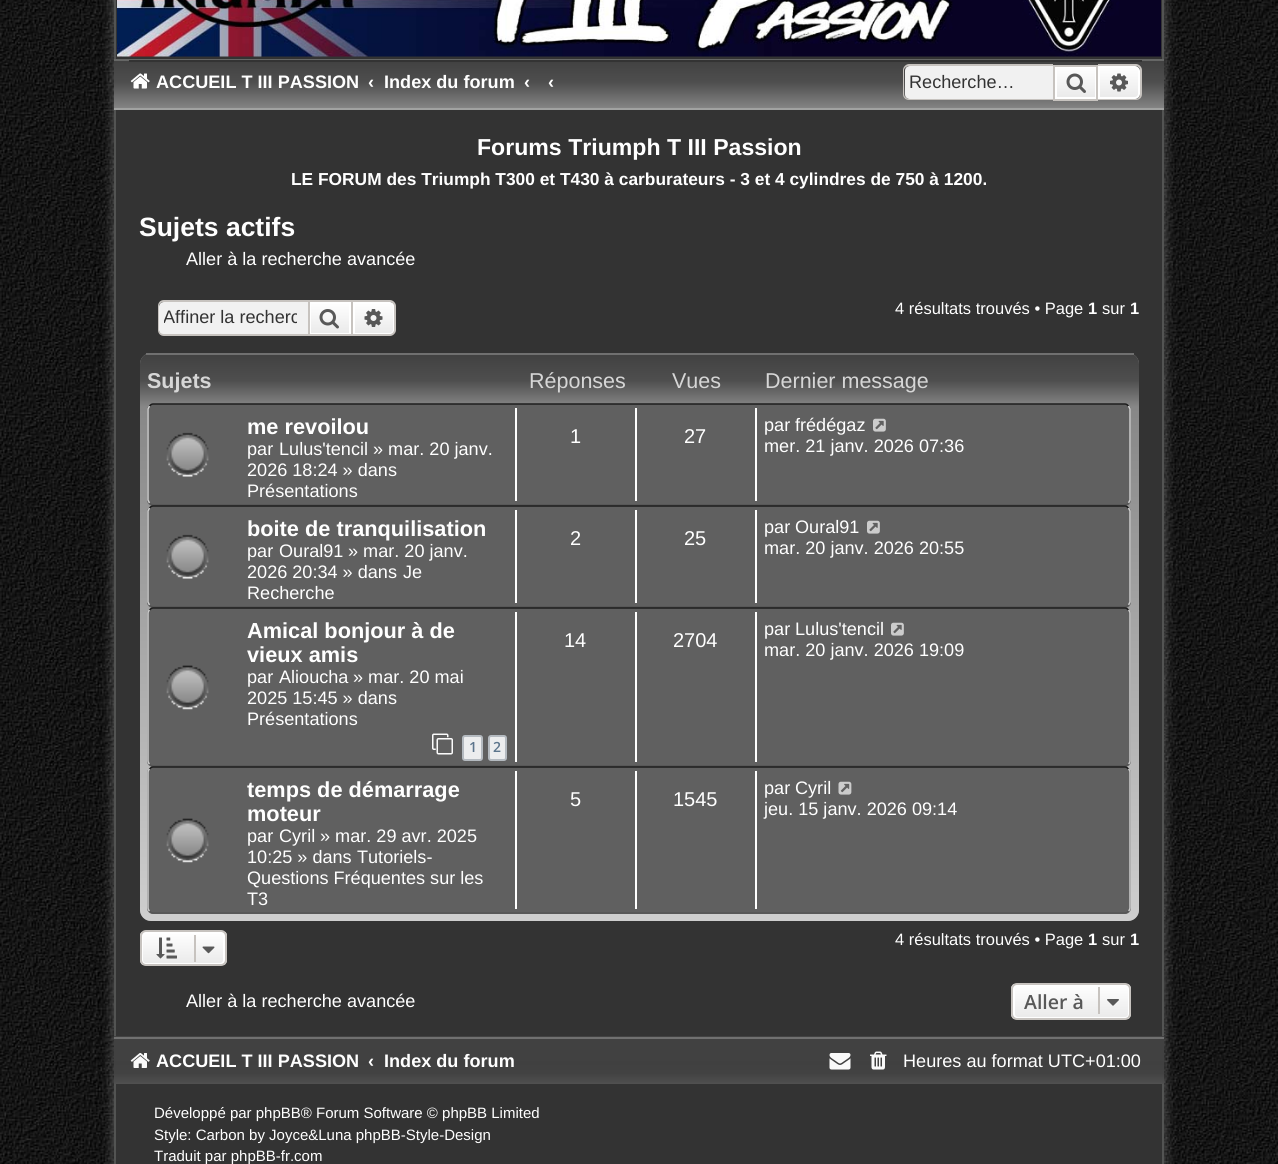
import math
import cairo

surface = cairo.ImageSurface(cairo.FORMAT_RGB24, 1278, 1164)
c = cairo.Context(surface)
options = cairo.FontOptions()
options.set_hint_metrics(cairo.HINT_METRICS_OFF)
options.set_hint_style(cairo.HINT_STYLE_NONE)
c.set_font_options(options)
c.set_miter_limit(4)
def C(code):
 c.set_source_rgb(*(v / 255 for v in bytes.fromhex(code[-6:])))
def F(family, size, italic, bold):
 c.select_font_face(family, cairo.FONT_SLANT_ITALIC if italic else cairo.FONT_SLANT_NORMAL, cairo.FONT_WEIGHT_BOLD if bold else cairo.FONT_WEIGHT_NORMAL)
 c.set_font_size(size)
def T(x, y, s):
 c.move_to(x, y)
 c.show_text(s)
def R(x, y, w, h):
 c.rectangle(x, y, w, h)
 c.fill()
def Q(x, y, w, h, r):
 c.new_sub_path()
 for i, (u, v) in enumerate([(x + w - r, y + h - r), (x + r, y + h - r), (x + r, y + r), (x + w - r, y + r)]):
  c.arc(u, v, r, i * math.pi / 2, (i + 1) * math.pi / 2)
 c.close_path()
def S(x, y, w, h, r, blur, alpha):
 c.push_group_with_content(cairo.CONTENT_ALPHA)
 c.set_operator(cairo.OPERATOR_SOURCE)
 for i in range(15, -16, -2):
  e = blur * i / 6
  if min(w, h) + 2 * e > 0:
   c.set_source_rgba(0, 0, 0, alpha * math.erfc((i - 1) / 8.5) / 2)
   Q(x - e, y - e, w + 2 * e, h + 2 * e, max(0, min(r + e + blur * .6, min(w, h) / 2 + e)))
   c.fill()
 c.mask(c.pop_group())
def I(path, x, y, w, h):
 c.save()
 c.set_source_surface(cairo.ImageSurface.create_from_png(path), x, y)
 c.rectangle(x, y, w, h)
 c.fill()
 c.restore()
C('ffffff')
c.paint()
I('1.png',0,0,1278,1164)
S(111,-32,1056,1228,18,4.5,.2)
C('333333')
c.rectangle(115,-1,1048,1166)
c.fill_preserve()
C('535453')
c.stroke()
I('2.png',117,0,1044,57)
gradient = cairo.LinearGradient(639,60,639,134)
gradient.add_color_stop_rgba(0,0.255,0.255,0.255,1)
gradient.add_color_stop_rgba(.3,0.306,0.306,0.306,1)
gradient.add_color_stop_rgba(.67,0.529,0.529,0.529,1)
gradient.add_color_stop_rgba(1,0.98,0.98,0.98,1)
c.set_source(gradient)
R(114,61,1050,47)
C('666766')
R(114,59,1050,2)
C('a1a2a1')
R(114,108,1050,2)
C('333333')
R(129,60,1013,2)
I('3.png',130,73,20,16)
F('Liberation Sans',18.1,0,1)
C('ffffff')
T(156,88,'ACCUEIL T III PASSION')
T(368,88,'‹')
T(384,88,'Index du forum')
T(524,88,'‹')
T(548,88,'‹')
C('f1f1f1')
c.new_path()
c.move_to(910,66)
c.line_to(1053,66)
c.line_to(1053,99)
c.line_to(910,99)
c.curve_to(907,99,905,97,905,94)
c.line_to(905,71)
c.curve_to(905,68,907,66,910,66)
c.close_path()
c.fill()
C('c7c3bf')
c.set_fill_rule(cairo.FILL_RULE_EVEN_ODD)
c.new_path()
c.move_to(909,64)
c.line_to(1053,64)
c.line_to(1053,100)
c.line_to(909,100)
c.curve_to(906,100,903,98,903,94)
c.line_to(903,70)
c.curve_to(903,67,906,64,909,64)
c.close_path()
c.move_to(909,66)
c.line_to(1053,66)
c.line_to(1053,99)
c.line_to(909,99)
c.curve_to(907,99,904,97,904,94)
c.line_to(904,70)
c.curve_to(904,68,907,66,909,66)
c.close_path()
c.fill()
F('Liberation Sans',18.1,0,0)
C('333333')
T(909,88,'Recherche…')
gradient = cairo.LinearGradient(1076,66,1076,99)
gradient.add_color_stop_rgba(0,1,1,1,1)
gradient.add_color_stop_rgba(1,0.914,0.914,0.914,1)
c.set_source(gradient)
R(1057,68,38,29)
c.rectangle(1056,67,40,31)
C('ffffff')
c.stroke()
c.rectangle(1054,66,43,34)
C('c7c3bf')
c.stroke()
I('4.png',1066,73,20,20)
gradient = cairo.LinearGradient(1119,66,1119,99)
gradient.add_color_stop_rgba(0,1,1,1,1)
gradient.add_color_stop_rgba(1,0.914,0.914,0.914,1)
c.set_source(gradient)
c.new_path()
c.move_to(1099,67)
c.line_to(1135,67)
c.curve_to(1137,67,1139,69,1139,71)
c.line_to(1139,94)
c.curve_to(1139,96,1137,98,1135,98)
c.line_to(1099,98)
c.close_path()
c.fill_preserve()
C('ffffff')
c.stroke()
C('c7c3bf')
c.new_path()
c.move_to(1098,64)
c.line_to(1136,64)
c.curve_to(1139,64,1142,67,1142,70)
c.line_to(1142,94)
c.curve_to(1142,98,1139,100,1136,100)
c.line_to(1098,100)
c.close_path()
c.move_to(1098,66)
c.line_to(1136,66)
c.curve_to(1138,66,1140,68,1140,70)
c.line_to(1140,94)
c.curve_to(1140,97,1138,99,1136,99)
c.line_to(1098,99)
c.close_path()
c.fill()
I('5.png',1110,73,18,19)
F('Liberation Sans',23.1,0,1)
C('ffffff')
T(477,155,'Forums Triumph T III Passion')
F('Liberation Sans',17.35,0,1)
T(291,185,'LE FORUM des Triumph T300 et T430 à carburateurs - 3 et 4 cylindres de 750 à 1200.')
F('Liberation Sans',26.5,0,1)
T(139,236,'Sujets actifs')
F('Liberation Sans',18.1,0,0)
T(186,265,'Aller à la recherche avancée')
C('f1f1f1')
c.new_path()
c.move_to(164,302)
c.line_to(308,302)
c.line_to(308,335)
c.line_to(164,335)
c.curve_to(161,335,159,333,159,330)
c.line_to(159,307)
c.curve_to(159,304,161,302,164,302)
c.close_path()
c.fill()
C('c7c3bf')
c.new_path()
c.move_to(164,300)
c.line_to(308,300)
c.line_to(308,336)
c.line_to(164,336)
c.curve_to(160,336,158,333,158,330)
c.line_to(158,306)
c.curve_to(158,303,160,300,164,300)
c.close_path()
c.move_to(164,302)
c.line_to(308,302)
c.line_to(308,334)
c.line_to(164,334)
c.curve_to(161,334,159,332,159,330)
c.line_to(159,306)
c.curve_to(159,304,161,302,164,302)
c.close_path()
c.fill()
c.save()
c.set_fill_rule(cairo.FILL_RULE_WINDING)
c.rectangle(164,308,133,21)
c.clip()
C('333333')
T(163,323,'Affiner la recherc')
c.restore()
gradient = cairo.LinearGradient(330,302,330,335)
gradient.add_color_stop_rgba(0,1,1,1,1)
gradient.add_color_stop_rgba(1,0.914,0.914,0.914,1)
c.set_source(gradient)
R(311,304,38,29)
c.rectangle(310,303,40,31)
C('ffffff')
c.stroke()
c.rectangle(309,301,43,34)
C('c7c3bf')
c.stroke()
I('6.png',319,309,20,20)
gradient = cairo.LinearGradient(374,302,374,335)
gradient.add_color_stop_rgba(0,1,1,1,1)
gradient.add_color_stop_rgba(1,0.914,0.914,0.914,1)
c.set_source(gradient)
c.new_path()
c.move_to(354,303)
c.line_to(390,303)
c.curve_to(392,303,394,305,394,307)
c.line_to(394,330)
c.curve_to(394,332,392,334,390,334)
c.line_to(354,334)
c.close_path()
c.fill_preserve()
C('ffffff')
c.stroke()
C('c7c3bf')
c.new_path()
c.move_to(352,300)
c.line_to(390,300)
c.curve_to(393,300,396,303,396,306)
c.line_to(396,330)
c.curve_to(396,333,393,336,390,336)
c.line_to(352,336)
c.close_path()
c.move_to(352,302)
c.line_to(390,302)
c.curve_to(392,302,394,304,394,306)
c.line_to(394,330)
c.curve_to(394,332,392,334,390,334)
c.line_to(352,334)
c.close_path()
c.fill()
I('7.png',364,309,19,18)
F('Liberation Sans',16.5,0,0)
C('ffffff')
T(895,314,'4 résultats trouvés • Page')
F('Liberation Sans',16.5,0,1)
T(1088,314,'1')
F('Liberation Sans',16.5,0,0)
T(1102,314,'sur')
F('Liberation Sans',16.5,0,1)
T(1130,314,'1')
C('8a8a8a')
Q(140,353,999,568,11)
c.fill()
c.save()
c.set_fill_rule(cairo.FILL_RULE_WINDING)
Q(140,353,999,568,11)
c.clip()
gradient = cairo.LinearGradient(639,354,639,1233)
gradient.add_color_stop_rgba(0,0.255,0.255,0.255,1)
gradient.add_color_stop_rgba(.03,0.306,0.306,0.306,1)
gradient.add_color_stop_rgba(.06,0.529,0.529,0.529,1)
gradient.add_color_stop_rgba(1,0.98,0.98,0.98,1)
c.set_source(gradient)
c.new_path()
c.move_to(140,354)
c.line_to(1139,354)
c.line_to(1139,910)
c.curve_to(1139,916,1134,921,1128,921)
c.line_to(151,921)
c.curve_to(145,921,140,916,140,910)
c.close_path()
c.fill()
c.restore()
C('707070')
R(146,353,988,2)
F('Liberation Sans',21.5,0,1)
C('d6d6d6')
T(147,388,'Sujets')
F('Liberation Sans',21.5,0,0)
T(529,388,'Réponses')
T(672,388,'Vues')
T(765,388,'Dernier message')
C('606060')
Q(147,404,984,102,6)
c.fill()
c.new_path()
c.move_to(149.5,406)
c.curve_to(150.5,405,151.5,404,153,404)
c.line_to(1125,404)
c.curve_to(1126.5,404,1127.5,405,1128.5,406)
C('1b1b1b')
c.set_line_width(1.5)
c.stroke()
c.new_path()
c.move_to(1128.5,406)
c.line_to(1130,409)
c.line_to(1130,500)
c.line_to(1128.5,503)
C('cccccc')
c.stroke()
c.new_path()
c.move_to(1128.5,503)
c.curve_to(1127.5,504,1126.5,505,1125,505)
c.line_to(153,505)
c.curve_to(151.5,505,150.5,504,149.5,503)
C('555555')
c.stroke()
c.new_path()
c.move_to(149.5,503)
c.line_to(148,500)
c.line_to(148,409)
c.line_to(149.5,406)
C('cccccc')
c.stroke()
I('8.png',166,432,43,45)
F('Liberation Sans',21.75,0,1)
C('ffffff')
T(247,434,'me revoilou')
F('Liberation Sans',18.1,0,0)
T(247,455,'par')
T(279,455,'Lulus\'tencil')
T(373,455,'» mar. 20 janv.')
T(247,476,'2026 18:24 » dans')
T(247,497,'Présentations')
R(515,408,2,93)
F('Liberation Sans',20,0,0)
T(570,443,'1')
R(635,408,2,93)
T(684,443,'27')
R(755,408,2,93)
F('Liberation Sans',18.1,0,0)
T(764,431,'par')
T(795,431,'frédégaz')
I('9.png',873,418,13,14)
T(764,452,'mer. 21 janv. 2026 07:36')
C('606060')
Q(147,506,984,102,6)
c.fill()
c.new_path()
c.move_to(149.5,508)
c.curve_to(150.5,507,151.5,506,153,506)
c.line_to(1125,506)
c.curve_to(1126.5,506,1127.5,507,1128.5,508)
C('1b1b1b')
c.stroke()
c.new_path()
c.move_to(1128.5,508)
c.line_to(1130,511)
c.line_to(1130,602)
c.line_to(1128.5,605)
C('cccccc')
c.stroke()
c.new_path()
c.move_to(1128.5,605)
c.curve_to(1127.5,606,1126.5,607,1125,607)
c.line_to(153,607)
c.curve_to(151.5,607,150.5,606,149.5,605)
C('555555')
c.stroke()
c.new_path()
c.move_to(149.5,605)
c.line_to(148,602)
c.line_to(148,511)
c.line_to(149.5,508)
C('cccccc')
c.stroke()
I('10.png',166,534,43,45)
F('Liberation Sans',21.75,0,1)
C('ffffff')
T(247,536,'boite de tranquilisation')
F('Liberation Sans',18.1,0,0)
T(247,557,'par')
T(279,557,'Oural91')
T(348,557,'» mar. 20 janv.')
T(247,578,'2026 20:34 » dans')
T(403,578,'Je')
T(247,599,'Recherche')
R(515,510,2,93)
F('Liberation Sans',20,0,0)
T(570,545,'2')
R(635,510,2,93)
T(684,545,'25')
R(755,510,2,93)
F('Liberation Sans',18.1,0,0)
T(764,533,'par')
T(795,533,'Oural91')
I('9.png',867,520,13,14)
T(764,554,'mar. 20 janv. 2026 20:55')
C('606060')
Q(147,608,984,159,6)
c.fill()
c.new_path()
c.move_to(149.5,610)
c.curve_to(150.5,609,151.5,608,153,608)
c.line_to(1125,608)
c.curve_to(1126.5,608,1127.5,609,1128.5,610)
C('1b1b1b')
c.stroke()
c.new_path()
c.move_to(1128.5,610)
c.curve_to(1129.5,611,1130,612,1130,613.5)
c.line_to(1130,760.5)
c.curve_to(1130,762,1129.5,763,1128.5,764)
C('cccccc')
c.stroke()
c.new_path()
c.move_to(1128.5,764)
c.curve_to(1127.5,765,1126.5,766,1125,766)
c.line_to(153,766)
c.curve_to(151.5,766,150.5,765,149.5,764)
C('555555')
c.stroke()
c.new_path()
c.move_to(149.5,764)
c.curve_to(148.5,763,148,762,148,760.5)
c.line_to(148,613.5)
c.curve_to(148,612,148.5,611,149.5,610)
C('cccccc')
c.stroke()
I('11.png',166,665,43,45)
F('Liberation Sans',21.75,0,1)
C('ffffff')
T(247,638,'Amical bonjour à de')
T(247,662,'vieux amis')
F('Liberation Sans',18.1,0,0)
T(247,683,'par')
T(279,683,'Alioucha')
T(353,683,'» mar. 20 mai')
T(247,704,'2025 15:45 » dans')
T(247,725,'Présentations')
I('12.png',432,733,21,22)
C('ecedee')
Q(463,736,19,24,2)
c.fill_preserve()
C('b4bac0')
c.set_line_width(2)
c.stroke()
F('Open Sans SemiBold',14,0,0)
C('5c758c')
T(469,752,'1')
C('ecedee')
Q(489,736,17,24,2)
c.fill_preserve()
C('b4bac0')
c.stroke()
C('5c758c')
T(493,752,'2')
C('ffffff')
R(515,612,2,150)
F('Liberation Sans',20,0,0)
T(564,647,'14')
R(635,612,2,150)
T(673,647,'2704')
R(755,612,2,150)
F('Liberation Sans',18.1,0,0)
T(764,635,'par')
T(795,635,'Lulus\'tencil')
I('9.png',891,622,13,14)
T(764,656,'mar. 20 janv. 2026 19:09')
C('606060')
Q(147,767,984,147,6)
c.fill()
c.new_path()
c.move_to(149.5,769)
c.curve_to(150.5,768,151.5,767,153,767)
c.line_to(1125,767)
c.curve_to(1126.5,767,1127.5,768,1128.5,769)
C('1b1b1b')
c.set_line_width(1.5)
c.stroke()
c.new_path()
c.move_to(1128.5,769)
c.curve_to(1129.5,770,1130,771,1130,772.5)
c.line_to(1130,907.5)
c.curve_to(1130,909,1129.5,910,1128.5,911)
C('cccccc')
c.stroke()
c.new_path()
c.move_to(1128.5,911)
c.curve_to(1127.5,912,1126.5,913,1125,913)
c.line_to(153,913)
c.curve_to(151.5,913,150.5,912,149.5,911)
C('555555')
c.stroke()
c.new_path()
c.move_to(149.5,911)
c.curve_to(148.5,910,148,909,148,907.5)
c.line_to(148,772.5)
c.curve_to(148,771,148.5,770,149.5,769)
C('cccccc')
c.stroke()
I('13.png',166,818,43,45)
F('Liberation Sans',21.75,0,1)
C('ffffff')
T(247,797,'temps de démarrage')
T(247,821,'moteur')
F('Liberation Sans',18.1,0,0)
T(247,842,'par')
T(279,842,'Cyril')
T(320,842,'» mar. 29 avr. 2025')
T(247,863,'10:25 » dans')
T(357,863,'Tutoriels-')
T(247,884,'Questions Fréquentes sur les')
T(247,905,'T3')
R(515,771,2,138)
F('Liberation Sans',20,0,0)
T(570,806,'5')
R(635,771,2,138)
T(673,806,'1545')
R(755,771,2,138)
F('Liberation Sans',18.1,0,0)
T(764,794,'par')
T(795,794,'Cyril')
I('14.png',838,781,14,14)
T(764,815,'jeu. 15 janv. 2026 09:14')
c.save()
c.set_fill_rule(cairo.FILL_RULE_WINDING)
Q(140,930,87,36,6)
c.clip()
gradient = cairo.LinearGradient(183,932,183,965)
gradient.add_color_stop_rgba(0,1,1,1,1)
gradient.add_color_stop_rgba(1,0.914,0.914,0.914,1)
c.set_source(gradient)
R(140,932,87,33)
c.restore()
Q(142,933,82,31,4)
c.set_line_width(2)
c.stroke()
Q(141,931,85,34,5)
C('c7c3bf')
c.stroke()
I('15.png',156,937,21,22)
R(194,935,2,27)
I('16.png',202,946,13,8)
F('Liberation Sans',16.5,0,0)
C('ffffff')
T(895,945,'4 résultats trouvés • Page')
F('Liberation Sans',16.5,0,1)
T(1088,945,'1')
F('Liberation Sans',16.5,0,0)
T(1102,945,'sur')
F('Liberation Sans',16.5,0,1)
T(1130,945,'1')
F('Liberation Sans',18.1,0,0)
T(186,1007,'Aller à la recherche avancée')
c.save()
c.set_fill_rule(cairo.FILL_RULE_WINDING)
Q(1011,983,120,37,6)
c.clip()
gradient = cairo.LinearGradient(1071,984,1071,1019)
gradient.add_color_stop_rgba(0,1,1,1,1)
gradient.add_color_stop_rgba(1,0.914,0.914,0.914,1)
c.set_source(gradient)
R(1011,984,120,35)
c.restore()
Q(1014,985,115,33,4)
c.stroke()
Q(1012,984,118,35,5)
C('c7c3bf')
c.stroke()
F('Open Sans SemiBold',19.5,0,0)
C('585858')
T(1024,1009,'Aller à')
C('c7c3bf')
R(1098,987,2,27)
I('17.png',1107,999,12,7)
I('18.png',114,1036,1050,48)
C('707070')
R(114,1037,1050,2)
I('19.png',130,1053,20,15)
F('Liberation Sans',18.1,0,1)
C('ffffff')
T(156,1067,'ACCUEIL T III PASSION')
T(368,1067,'‹')
T(384,1067,'Index du forum')
I('20.png',829,1053,22,17)
I('21.png',870,1051,17,19)
F('Liberation Sans',18.1,0,0)
T(903,1067,'Heures au format UTC+01:00')
F('Liberation Sans',15,0,0)
T(154,1118,'Développé par phpBB® Forum Software © phpBB Limited')
T(154,1140,'Style: Carbon by Joyce&Luna phpBB-Style-Design')
T(154,1161,'Traduit par phpBB-fr.com')
surface.write_to_png('o.png')
